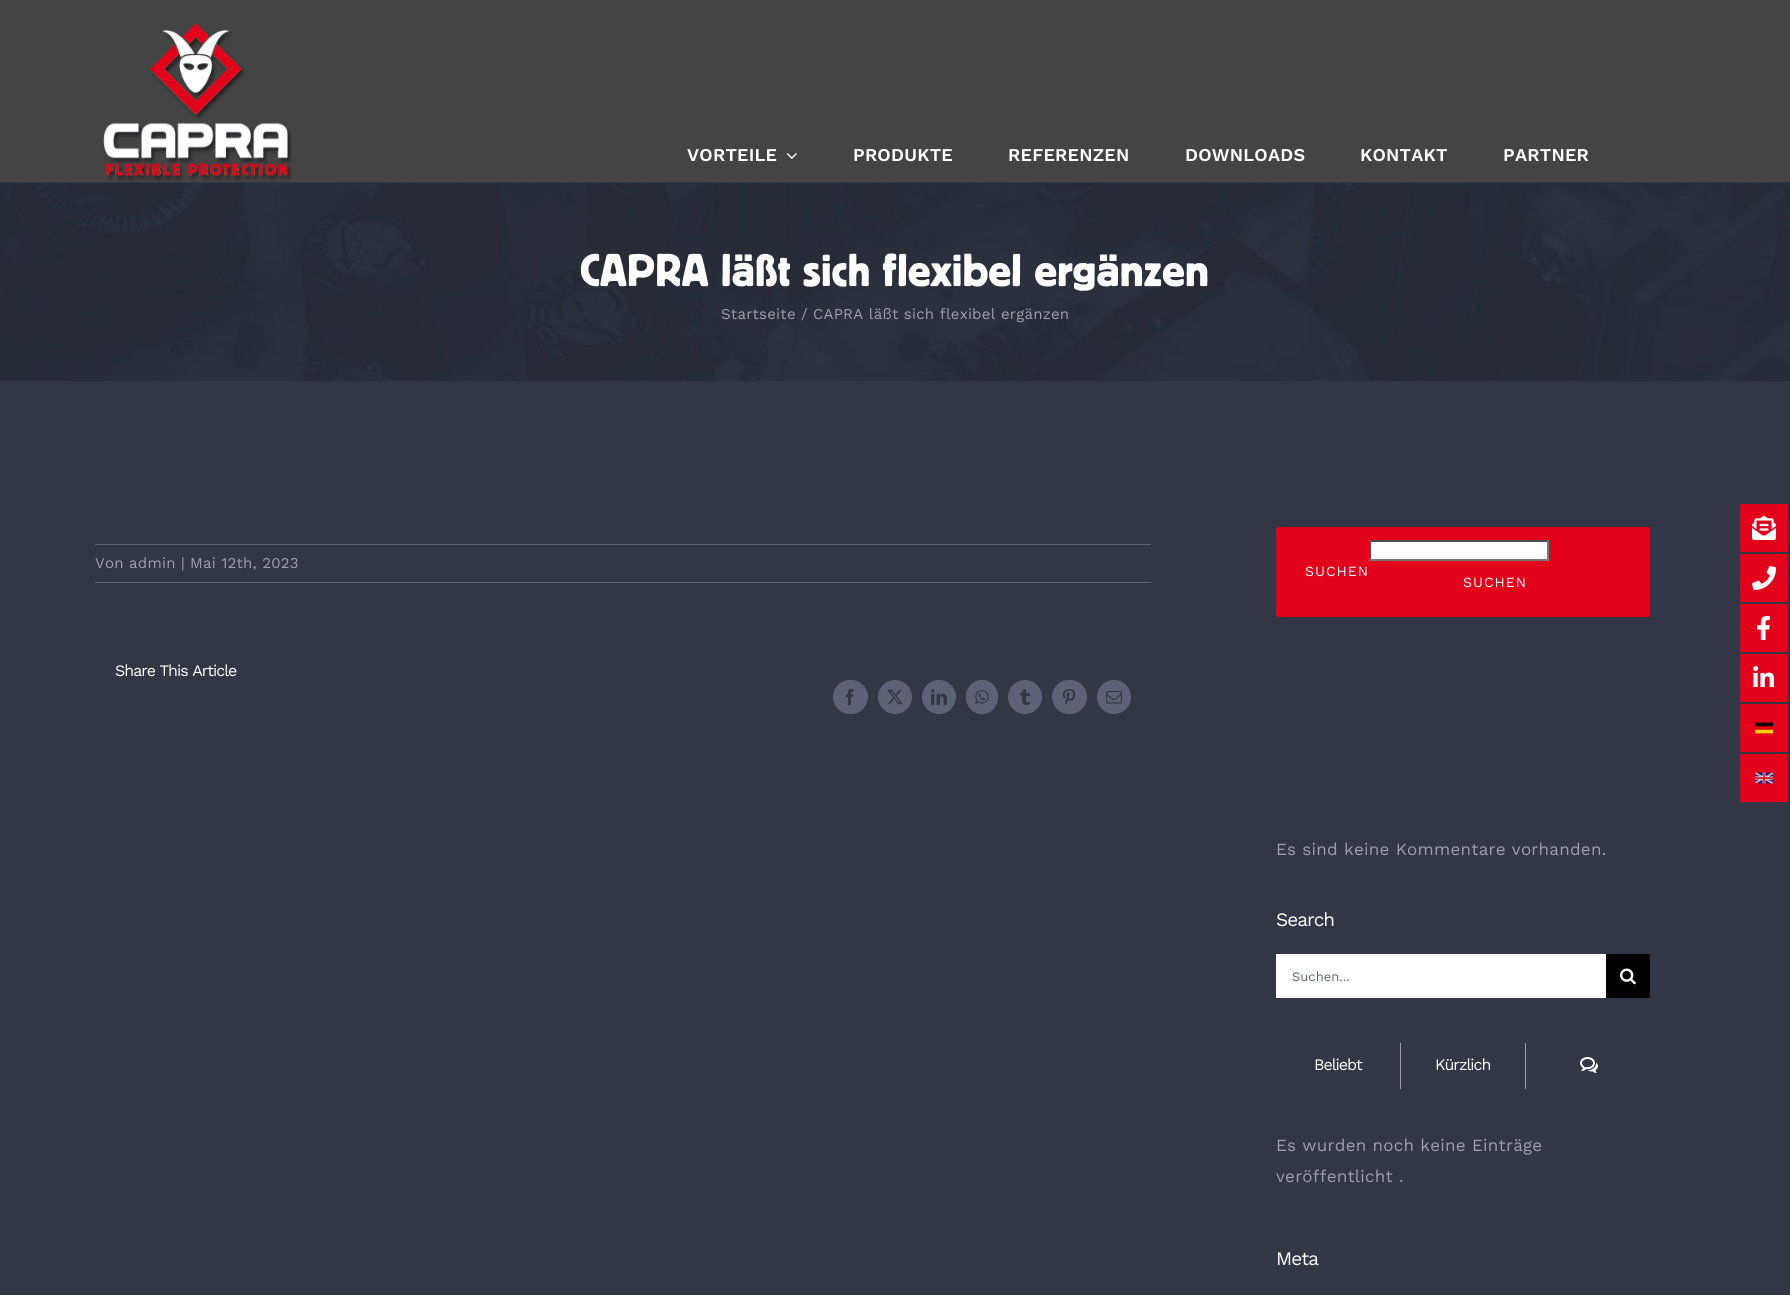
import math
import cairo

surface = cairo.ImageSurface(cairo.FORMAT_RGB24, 1790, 1295)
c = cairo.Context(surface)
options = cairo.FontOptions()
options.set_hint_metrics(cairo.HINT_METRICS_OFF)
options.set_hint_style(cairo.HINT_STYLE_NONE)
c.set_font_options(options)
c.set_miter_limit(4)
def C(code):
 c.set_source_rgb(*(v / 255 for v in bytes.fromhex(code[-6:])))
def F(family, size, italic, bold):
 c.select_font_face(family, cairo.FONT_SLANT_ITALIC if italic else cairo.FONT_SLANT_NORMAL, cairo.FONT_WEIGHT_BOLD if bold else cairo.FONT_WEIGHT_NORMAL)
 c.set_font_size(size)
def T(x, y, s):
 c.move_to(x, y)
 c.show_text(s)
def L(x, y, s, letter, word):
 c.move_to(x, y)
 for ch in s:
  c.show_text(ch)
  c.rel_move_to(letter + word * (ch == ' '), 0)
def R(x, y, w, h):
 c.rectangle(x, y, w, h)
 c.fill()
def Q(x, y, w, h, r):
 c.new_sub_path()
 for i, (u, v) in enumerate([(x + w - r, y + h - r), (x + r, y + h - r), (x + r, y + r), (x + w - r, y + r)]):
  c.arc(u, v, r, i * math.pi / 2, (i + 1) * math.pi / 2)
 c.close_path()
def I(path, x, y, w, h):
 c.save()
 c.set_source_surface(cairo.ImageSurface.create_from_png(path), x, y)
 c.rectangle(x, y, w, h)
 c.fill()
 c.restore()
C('333645')
c.paint()
C('444444')
R(0,0,1790,182)
I('1.png',103,22,189,159)
F('Work Sans SemiBold',18,0,0)
C('ffffff')
L(687,161,'VORTEILE',.25,0)
I('2.png',786,153,11,6)
L(853,161,'PRODUKTE',.25,0)
L(1008,161,'REFERENZEN',.25,0)
L(1185,161,'DOWNLOADS',.25,0)
L(1360,161,'KONTAKT',.25,0)
L(1503,161,'PARTNER',.25,0)
I('3.png',0,183,1790,198)
F('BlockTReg',48,0,0)
L(580,286,'CAPRA läßt sich flexibel ergänzen',.25,0)
F('Work Sans',15,0,0)
C('9fa0ab')
L(721,319,'Startseite',.25,0)
L(801,319,'/',.25,0)
L(813,319,'CAPRA läßt sich flexibel ergänzen',.25,0)
C('5e6276')
R(95,544,1056,1)
R(95,582,1056,1)
C('9fa0ab')
L(95,568,'Von admin',.25,0)
L(181,568,'|',.25,0)
L(190,568,'Mai 12th, 2023',.25,0)
F('Work Sans',16,0,0)
C('ffffff')
L(115,676,'Share This Article',-1,0)
C('5e6276')
Q(833.5,680.5,34,33,16.5)
c.fill_preserve()
c.set_line_width(1)
c.stroke()
I('4.png',846,689,8,16)
c.arc(895,697,16.5,0,2 * math.pi)
c.fill_preserve()
c.stroke()
I('5.png',887,689,16,16)
c.arc(939,697,16.5,0,2 * math.pi)
c.fill_preserve()
c.stroke()
I('6.png',931,689,16,16)
c.new_path()
c.move_to(982,680)
c.curve_to(991,680,998,687.5,998,697)
c.curve_to(998,706.5,991,714,982,714)
c.curve_to(973,714,966,706.5,966,697)
c.curve_to(966,687.5,973,680,982,680)
c.close_path()
c.fill()
c.new_path()
c.move_to(982,680.5)
c.curve_to(990.5,680.5,997.5,688,997.5,697)
c.curve_to(997.5,706,990.5,713.5,982,713.5)
c.curve_to(973.5,713.5,966.5,706,966.5,697)
c.curve_to(966.5,688,973.5,680.5,982,680.5)
c.close_path()
c.stroke()
I('7.png',975,690,14,14)
c.arc(1025,697,16.5,0,2 * math.pi)
c.fill_preserve()
c.stroke()
I('8.png',1020,689,10,16)
Q(1052.5,680.5,34,33,16.5)
c.fill_preserve()
c.stroke()
I('9.png',1062,689,14,16)
c.arc(1114,697,16.5,0,2 * math.pi)
c.fill_preserve()
c.stroke()
I('10.png',1106,691,16,13)
C('e2001a')
Q(1276,527,374,90,2)
c.fill()
F('Work Sans',14,0,0)
C('ffffff')
L(1305,576,'SUCHEN',1,0)
R(1369,540,180,21)
C('4f4f4f')
c.new_path()
c.move_to(1369,540)
c.line_to(1549,540)
c.line_to(1547,542)
c.line_to(1371,542)
c.close_path()
c.fill()
C('767676')
c.new_path()
c.move_to(1549,540)
c.line_to(1549,561)
c.line_to(1547,559)
c.line_to(1547,542)
c.close_path()
c.fill()
c.new_path()
c.move_to(1549,561)
c.line_to(1369,561)
c.line_to(1371,559)
c.line_to(1547,559)
c.close_path()
c.fill()
C('4f4f4f')
c.new_path()
c.move_to(1369,561)
c.line_to(1369,540)
c.line_to(1371,542)
c.line_to(1371,559)
c.close_path()
c.fill()
C('ffffff')
L(1463,587,'SUCHEN',1,0)
F('Work Sans',17,0,0)
C('9fa0ab')
L(1276,855,'Es sind keine Kommentare vorhanden.',.25,0)
F('Work Sans',19,0,0)
C('ffffff')
L(1276,926,'Search',-1,0)
R(1276,954,330,44)
F('Work Sans',13,0,0)
C('5e6276')
T(1292,981,'Suchen...')
C('000000')
R(1606,954,44,44)
I('11.png',1620,968,16,17)
C('9fa0ab')
R(1400,1043,1,46)
F('Work Sans',16,0,0)
C('ffffff')
L(1314,1070,'Beliebt',-1,0)
C('9fa0ab')
R(1525,1043,1,46)
C('ffffff')
L(1435,1070,'Kürzlich',-1,0)
I('12.png',1580,1057,18,16)
F('Work Sans',17,0,0)
C('9fa0ab')
L(1276,1151,'Es wurden noch keine Einträge',.25,0)
L(1276,1182,'veröffentlicht .',.25,0)
F('Work Sans',19,0,0)
C('ffffff')
L(1276,1265,'Meta',-1,0)
C('e2001a')
R(1740,504,48,48)
I('13.png',1752,516,24,24)
R(1740,554,48,48)
I('14.png',1752,566,25,24)
R(1740,604,48,48)
I('15.png',1757,616,13,24)
R(1740,654,48,48)
I('16.png',1753,666,21,21)
R(1740,704,48,48)
I('17.png',1754,722,20,12)
R(1740,754,48,48)
I('18.png',1754,772,20,12)
surface.write_to_png('o.png')
